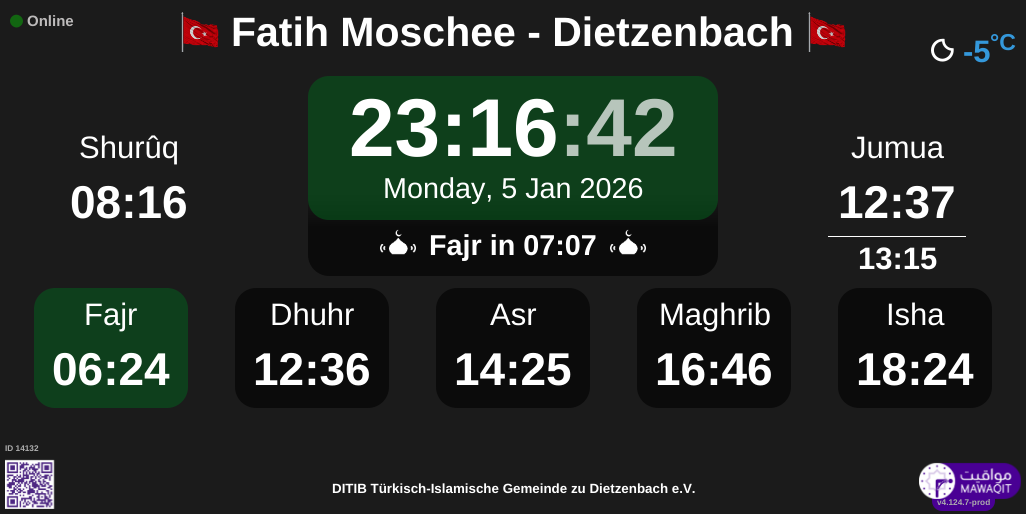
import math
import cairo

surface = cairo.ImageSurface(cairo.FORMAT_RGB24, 1026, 514)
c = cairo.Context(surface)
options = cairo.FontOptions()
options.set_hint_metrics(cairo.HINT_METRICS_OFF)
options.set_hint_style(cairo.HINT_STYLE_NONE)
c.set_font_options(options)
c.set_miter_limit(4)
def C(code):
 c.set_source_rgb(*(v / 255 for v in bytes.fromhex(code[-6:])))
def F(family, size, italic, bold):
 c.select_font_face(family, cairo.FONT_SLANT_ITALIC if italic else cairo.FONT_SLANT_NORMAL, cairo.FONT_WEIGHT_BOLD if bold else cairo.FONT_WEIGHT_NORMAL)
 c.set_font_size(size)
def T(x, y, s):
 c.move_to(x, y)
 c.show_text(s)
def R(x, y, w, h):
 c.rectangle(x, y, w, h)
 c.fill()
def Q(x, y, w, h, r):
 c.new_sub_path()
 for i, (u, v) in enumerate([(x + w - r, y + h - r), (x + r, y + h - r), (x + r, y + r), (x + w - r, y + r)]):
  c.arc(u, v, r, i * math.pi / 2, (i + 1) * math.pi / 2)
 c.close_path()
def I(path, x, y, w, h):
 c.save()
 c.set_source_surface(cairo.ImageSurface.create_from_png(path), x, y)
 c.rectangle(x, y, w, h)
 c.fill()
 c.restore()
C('1b1b1b')
c.paint()
C('126611')
c.new_path()
c.move_to(12,16.5)
c.curve_to(18,11,27,19.5,21,25.5)
c.curve_to(15,31.5,6,22.5,12,16.5)
c.close_path()
c.fill()
F('Liberation Sans',15,0,1)
C('bdbbbb')
T(27,26,'Online')
I('1.png',181,12,38,40)
F('Liberation Sans',41,0,1)
C('ffffff')
T(231,46,'Fatih Moschee - Dietzenbach')
I('2.png',808,12,38,40)
I('3.png',931,38,23,24)
F('Liberation Sans',31,0,1)
C('3498db')
T(963,62,'-5')
F('Liberation Sans',23,0,1)
T(990,50,'°C')
F('Liberation Sans',31,0,0)
C('ffffff')
T(79,158,'Shurûq')
F('Liberation Sans',46,0,1)
T(70,218,'08:16')
gradient = cairo.LinearGradient(513,276,513,194)
gradient.add_color_stop_rgba(.6,0.043,0.043,0.043,1)
gradient.add_color_stop_rgba(1,0.106,0.106,0.106,1)
c.set_source(gradient)
c.new_path()
c.move_to(308,194)
c.line_to(718,194)
c.line_to(718,255)
c.curve_to(718,266.5,708.5,276,697,276)
c.line_to(329,276)
c.curve_to(317.5,276,308,266.5,308,255)
c.close_path()
c.fill()
c.set_source_rgba(0.024,0.341,0.11,0.6)
Q(308,76,410,144,21)
c.fill()
F('Liberation Sans',82,0,1)
C('ffffff')
T(349,156,'23:16')
C('b7c5bb')
T(559,156,':42')
F('Liberation Sans',28.75,0,0)
C('ffffff')
T(383,198,'Monday, 5 Jan 2026')
I('4.png',380,229,36,26)
F('Liberation Sans',28.75,0,1)
T(429,255,'Fajr in 07:07')
I('4.png',610,229,36,26)
F('Liberation Sans',31,0,0)
T(851,158,'Jumua')
F('Liberation Sans',46,0,1)
T(838,218,'12:37')
R(828,236,138,1)
F('Liberation Sans',31,0,1)
T(858,269,'13:15')
C('0e3f1c')
Q(34,288,154,120,21)
c.fill()
F('Liberation Sans',31,0,0)
C('ffffff')
T(84,325,'Fajr')
F('Liberation Sans',46,0,1)
T(52,385,'06:24')
C('0b0b0b')
Q(235,288,154,120,21)
c.fill()
F('Liberation Sans',31,0,0)
C('ffffff')
T(270,325,'Dhuhr')
F('Liberation Sans',46,0,1)
T(253,385,'12:36')
C('0b0b0b')
Q(436,288,154,120,21)
c.fill()
F('Liberation Sans',31,0,0)
C('ffffff')
T(490,325,'Asr')
F('Liberation Sans',46,0,1)
T(454,385,'14:25')
C('0b0b0b')
Q(637,288,154,120,21)
c.fill()
F('Liberation Sans',31,0,0)
C('ffffff')
T(659,325,'Maghrib')
F('Liberation Sans',46,0,1)
T(655,385,'16:46')
C('0b0b0b')
Q(838,288,154,120,21)
c.fill()
F('Liberation Sans',31,0,0)
C('ffffff')
T(886,325,'Isha')
F('Liberation Sans',46,0,1)
T(856,385,'18:24')
F('Liberation Sans',8.25,0,1)
C('adadad')
T(5,451,'ID 14132')
I('5.png',5,459,50,50)
F('Liberation Sans',13.35,0,1)
C('ffffff')
T(332,493,'DITIB Türkisch-Islamische Gemeinde zu Dietzenbach e.V.')
C('490094')
c.new_path()
c.move_to(932,495)
c.line_to(995,495)
c.line_to(995,501)
c.curve_to(995,506.5,990.5,511,985,511)
c.line_to(942,511)
c.curve_to(936.5,511,932,506.5,932,501)
c.close_path()
c.fill()
I('6.png',919,462,102,37)
F('Liberation Sans',8.25,0,1)
C('adadad')
T(937,505,'v4.124.7-prod')
surface.write_to_png('o.png')
